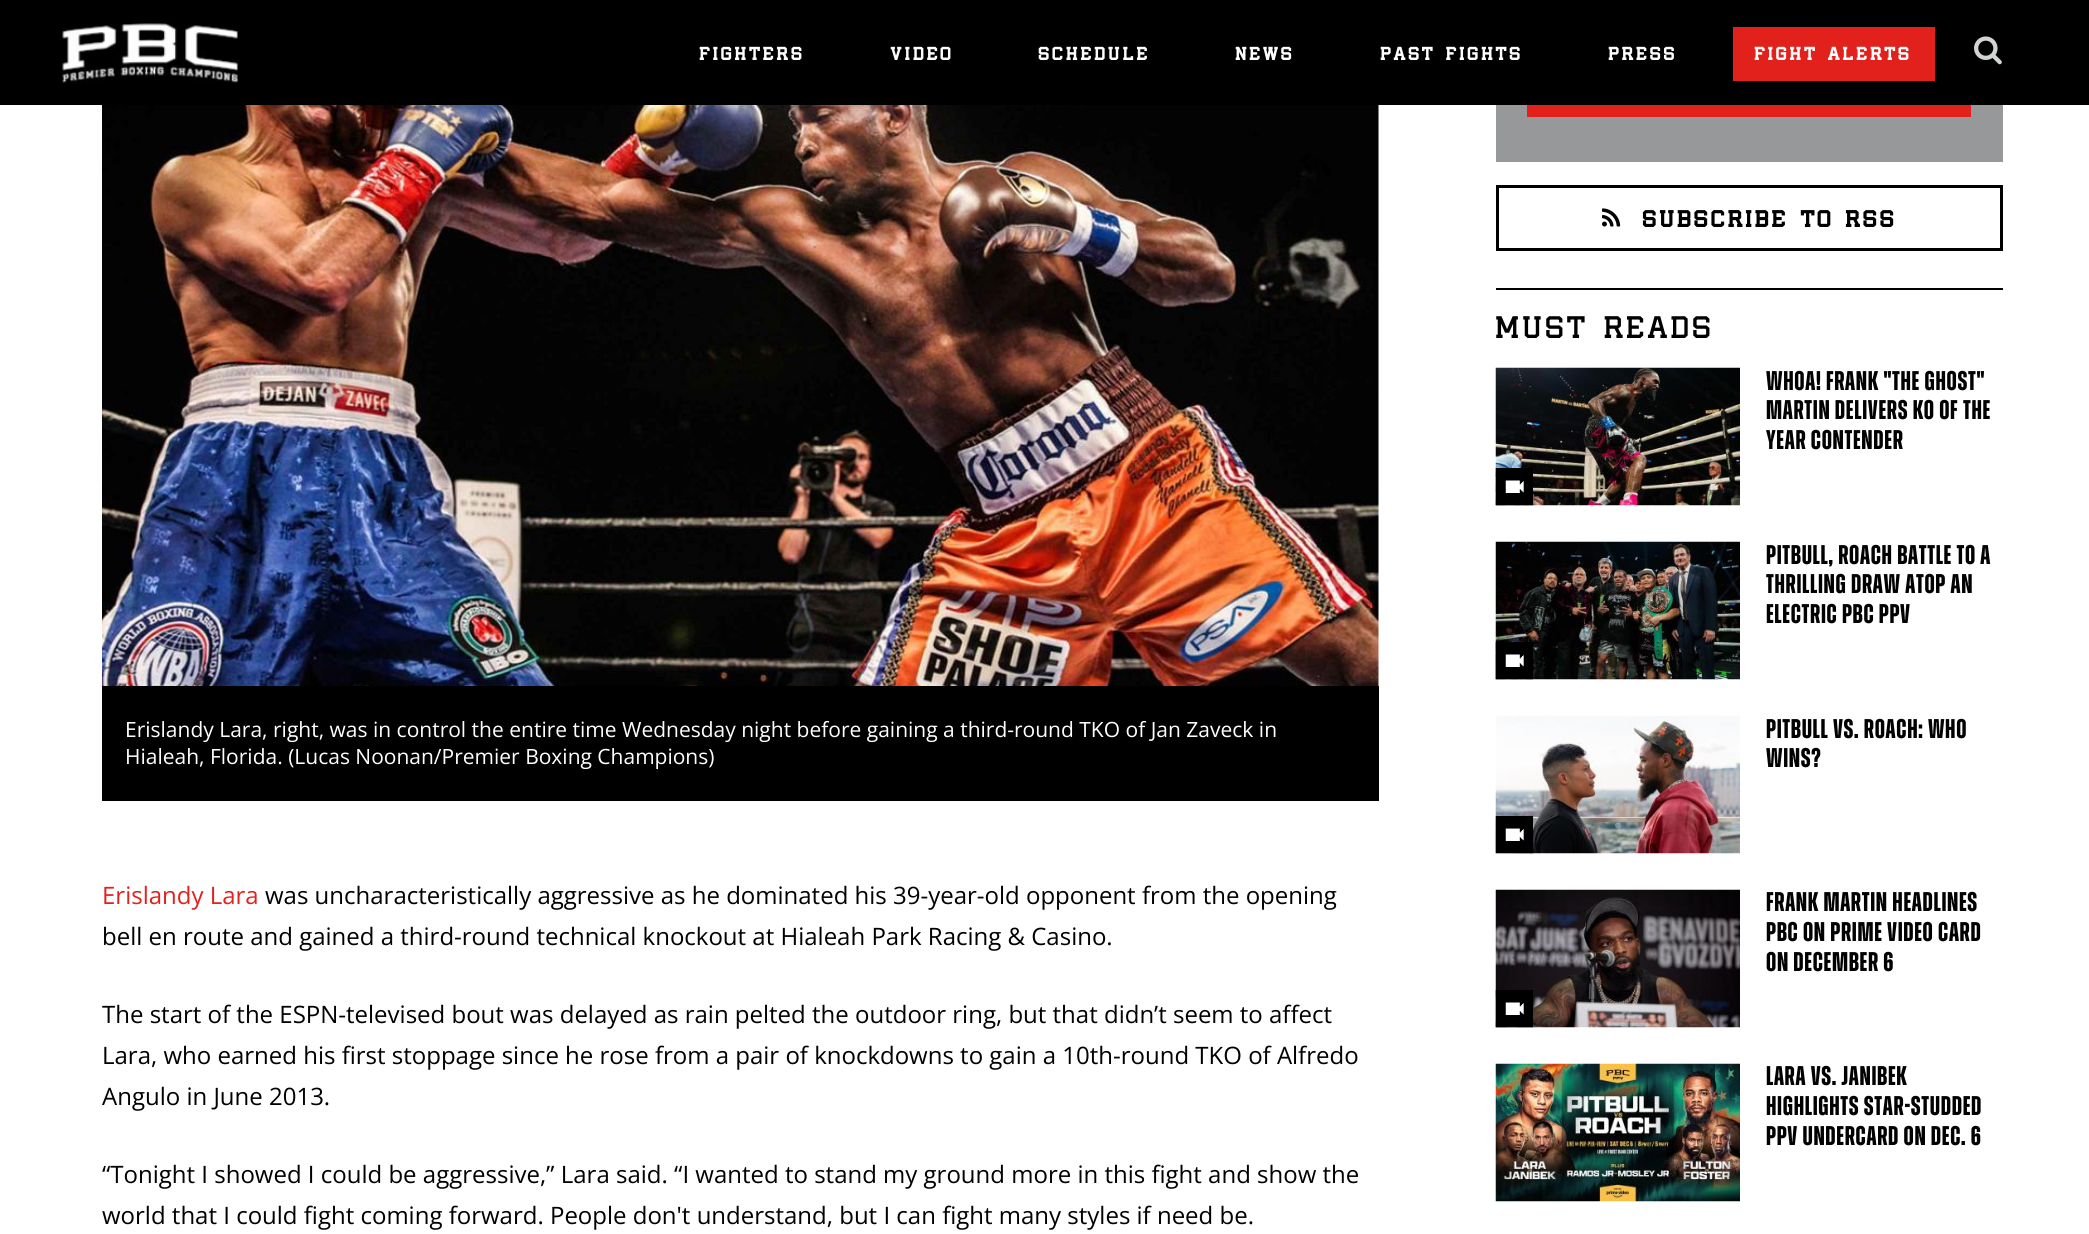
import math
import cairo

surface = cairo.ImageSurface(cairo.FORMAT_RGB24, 2089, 1234)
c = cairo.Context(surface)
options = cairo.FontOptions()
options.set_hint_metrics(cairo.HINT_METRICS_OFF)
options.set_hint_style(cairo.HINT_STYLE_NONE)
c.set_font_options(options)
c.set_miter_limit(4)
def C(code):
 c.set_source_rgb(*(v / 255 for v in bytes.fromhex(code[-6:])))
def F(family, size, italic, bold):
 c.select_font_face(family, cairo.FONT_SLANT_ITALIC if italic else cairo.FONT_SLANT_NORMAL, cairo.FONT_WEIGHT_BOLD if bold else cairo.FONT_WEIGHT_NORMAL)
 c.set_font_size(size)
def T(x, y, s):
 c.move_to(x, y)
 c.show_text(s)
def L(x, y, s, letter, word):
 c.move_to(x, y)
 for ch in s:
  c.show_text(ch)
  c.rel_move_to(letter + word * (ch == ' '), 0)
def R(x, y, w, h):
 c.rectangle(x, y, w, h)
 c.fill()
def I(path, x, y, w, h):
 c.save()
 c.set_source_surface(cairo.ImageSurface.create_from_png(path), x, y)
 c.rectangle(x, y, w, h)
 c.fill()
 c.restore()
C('ffffff')
c.paint()
C('000000')
R(0,0,2089,105)
I('1.png',62,23,177,61)
F('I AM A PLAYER',18,0,1)
C('ffffff')
L(699,60,'FIGHTERS',3,0)
L(890,60,'VIDEO',3,0)
L(1038,60,'SCHEDULE',3,0)
L(1235,60,'NEWS',3,0)
L(1380,60,'PAST FIGHTS',3,0)
L(1608,60,'PRESS',3,0)
C('e2211c')
R(1733,27,202,54)
C('ffffff')
L(1754,60,'FIGHT ALERTS',3,0)
I('2.png',1974,36,28,29)
I('3.png',102,105,1277,581)
C('000000')
R(102,686,1277,115)
F('Open Sans',21,0,0)
C('ffffff')
T(125,737,'Erislandy Lara, right, was in control the entire time Wednesday night before gaining a third-round TKO of Jan Zaveck in')
T(125,764,'Hialeah, Florida. (Lucas Noonan/Premier Boxing Champions)')
F('Open Sans',24,0,0)
C('e2211c')
T(102,904,'Erislandy Lara')
C('000000')
T(265,904,'was uncharacteristically aggressive as he dominated his 39-year-old opponent from the opening')
T(102,945,'bell en route and gained a third-round technical knockout at Hialeah Park Racing & Casino.')
T(102,1023,'The start of the ESPN-televised bout was delayed as rain pelted the outdoor ring, but that didn’t seem to affect')
T(102,1064,'Lara, who earned his first stoppage since he rose from a pair of knockdowns to gain a 10th-round TKO of Alfredo')
T(102,1105,'Angulo in June 2013.')
T(102,1183,'“Tonight I showed I could be aggressive,” Lara said. “I wanted to stand my ground more in this fight and show the')
T(102,1224,'world that I could fight coming forward. People don\'t understand, but I can fight many styles if need be.')
R(1496,288,507,2)
C('979899')
R(1496,105,507,57)
C('e2211c')
R(1527,105,444,12)
c.rectangle(1497.5,186.5,504,63)
C('000000')
c.set_line_width(3)
c.stroke()
I('4.png',1602,208,19,19)
F('I AM A PLAYER',23.1,0,1)
L(1642,227,'SUBSCRIBE TO RSS',3,0)
F('I AM A PLAYER',31,0,0)
L(1495,338,'MUST READS',3,0)
I('5.png',1495,367,245,139)
I('6.png',1495,468,38,38)
F('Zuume',27,0,1)
L(1766,390,'WHOA! FRANK "THE GHOST"',.7,0)
L(1766,419,'MARTIN DELIVERS KO OF THE',.7,0)
L(1766,449,'YEAR CONTENDER',.7,0)
I('7.png',1495,541,245,139)
I('8.png',1495,642,38,38)
L(1766,564,'PITBULL, ROACH BATTLE TO A',.7,0)
L(1766,593,'THRILLING DRAW ATOP AN',.7,0)
L(1766,623,'ELECTRIC PBC PPV',.7,0)
I('9.png',1495,715,245,139)
I('10.png',1495,816,38,38)
L(1766,738,'PITBULL VS. ROACH: WHO',.7,0)
L(1766,767,'WINS?',.7,0)
I('11.png',1495,889,245,139)
I('12.png',1495,990,38,38)
L(1766,911,'FRANK MARTIN HEADLINES',.7,0)
L(1766,941,'PBC ON PRIME VIDEO CARD',.7,0)
L(1766,971,'ON DECEMBER 6',.7,0)
I('13.png',1495,1063,245,139)
L(1766,1085,'LARA VS. JANIBEK',.7,0)
L(1766,1115,'HIGHLIGHTS STAR-STUDDED',.7,0)
L(1766,1145,'PPV UNDERCARD ON DEC. 6',.7,0)
surface.write_to_png('o.png')
